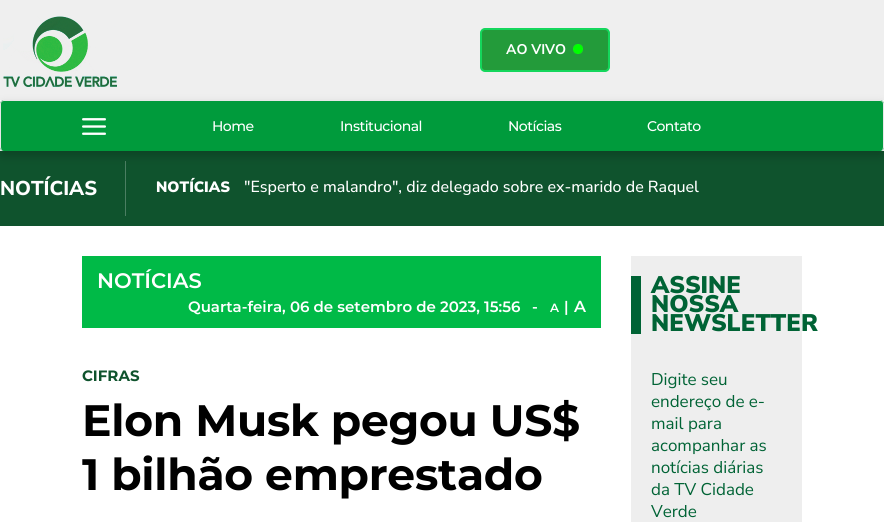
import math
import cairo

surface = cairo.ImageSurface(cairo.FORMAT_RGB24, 884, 522)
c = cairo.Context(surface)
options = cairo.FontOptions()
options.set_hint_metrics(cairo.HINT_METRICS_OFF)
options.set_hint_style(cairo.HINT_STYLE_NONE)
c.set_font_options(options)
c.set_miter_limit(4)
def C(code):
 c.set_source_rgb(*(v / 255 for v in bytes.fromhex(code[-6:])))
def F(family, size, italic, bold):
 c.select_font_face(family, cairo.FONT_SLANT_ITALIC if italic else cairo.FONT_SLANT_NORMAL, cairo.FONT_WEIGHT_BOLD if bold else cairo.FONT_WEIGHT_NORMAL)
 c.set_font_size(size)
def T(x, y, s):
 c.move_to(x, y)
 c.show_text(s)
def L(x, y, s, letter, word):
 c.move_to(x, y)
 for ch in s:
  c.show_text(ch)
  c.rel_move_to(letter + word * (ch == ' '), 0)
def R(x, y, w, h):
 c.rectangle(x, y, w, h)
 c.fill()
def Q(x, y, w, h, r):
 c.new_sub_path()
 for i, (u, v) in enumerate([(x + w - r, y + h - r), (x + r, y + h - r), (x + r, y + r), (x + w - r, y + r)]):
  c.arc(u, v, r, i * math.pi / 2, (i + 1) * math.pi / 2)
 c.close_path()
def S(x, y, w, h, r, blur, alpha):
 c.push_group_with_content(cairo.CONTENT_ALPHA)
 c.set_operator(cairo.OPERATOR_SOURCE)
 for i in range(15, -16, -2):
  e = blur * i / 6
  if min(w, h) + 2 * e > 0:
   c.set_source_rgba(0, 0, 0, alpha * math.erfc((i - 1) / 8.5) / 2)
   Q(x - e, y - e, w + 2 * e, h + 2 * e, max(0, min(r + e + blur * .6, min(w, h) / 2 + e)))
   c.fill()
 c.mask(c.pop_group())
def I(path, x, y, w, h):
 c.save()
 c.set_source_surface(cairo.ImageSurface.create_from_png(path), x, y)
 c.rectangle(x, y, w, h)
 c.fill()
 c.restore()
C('ffffff')
c.paint()
C('efefef')
R(0,0,884,100)
I('1.png',3,16,114,71)
C('239b3a')
Q(481,29,128,42,4)
c.fill_preserve()
C('15d65c')
c.stroke()
F('Nunito Sans',14,0,1)
C('ffffff')
T(506,54,'AO VIVO')
I('2.png',573,44,10,10)
C('0f532d')
R(0,151,884,75)
C('4b7e62')
R(125,161,1,55)
C('000000')
S(0,105,884,51,4,5,.2)
C('009b3c')
Q(0,100,884,51,4)
c.fill()
C('e7e7e7')
c.set_fill_rule(cairo.FILL_RULE_EVEN_ODD)
c.new_path()
c.move_to(4,100)
c.line_to(880,100)
c.curve_to(882,100,884,102,884,104)
c.line_to(884,147)
c.curve_to(884,149,882,151,880,151)
c.line_to(4,151)
c.curve_to(2,151,0,149,0,147)
c.line_to(0,104)
c.curve_to(0,102,2,100,4,100)
c.close_path()
c.move_to(4,101)
c.line_to(880,101)
c.curve_to(882,101,883,102,883,104)
c.line_to(883,147)
c.curve_to(883,149,882,151,880,151)
c.line_to(4,151)
c.curve_to(2,151,1,149,1,147)
c.line_to(1,104)
c.curve_to(1,102,2,101,4,101)
c.close_path()
c.fill()
I('3.png',82,118,24,17)
F('Montserrat Medium',14,0,0)
C('ffffff')
L(212,131,'Home',-.5,0)
L(340,131,'Institucional',-.5,0)
L(508,131,'Notícias',-.5,0)
L(647,131,'Contato',-.5,0)
F('Nunito Sans ExtraBold',20,0,0)
T(0,195,'NOTÍCIAS')
F('Nunito Sans Black',15,0,0)
T(156,192,'NOTÍCIAS')
F('Nunito Sans Medium',16,0,0)
T(244,192,'"Esperto e malandro", diz delegado sobre ex-marido de Raquel')
C('00ba47')
R(82,256,519,72)
F('Montserrat SemiBold',21,0,0)
C('ffffff')
T(97,288,'NOTÍCIAS')
F('Montserrat SemiBold',15,0,0)
T(188,312,'Quarta-feira, 06 de setembro de 2023, 15:56')
T(532,312,'-')
F('Montserrat SemiBold',12,0,0)
T(550,312,'A')
F('Montserrat SemiBold',15,0,0)
T(564,312,'|')
F('Montserrat SemiBold',16,0,0)
T(574,312,'A')
F('Montserrat',15,0,1)
C('0f532d')
T(82,381,'CIFRAS')
F('Montserrat',44,0,1)
C('000000')
L(82,436,'Elon Musk pegou US$',-.25,0)
L(82,490,'1 bilhão emprestado',-.25,0)
C('eeeeee')
R(631,256,171,266)
C('006335')
R(631,276,10,58)
F('Nunito Sans Black',24,0,0)
T(651,293,'ASSINE')
T(651,312,'NOSSA')
T(651,331,'NEWSLETTER')
F('Nunito Sans',17,0,0)
T(651,385,'Digite seu')
T(651,407,'endereço de e-')
T(651,429,'mail para')
T(651,451,'acompanhar as')
T(651,473,'notícias diárias')
T(651,495,'da TV Cidade')
T(651,517,'Verde')
surface.write_to_png('o.png')
